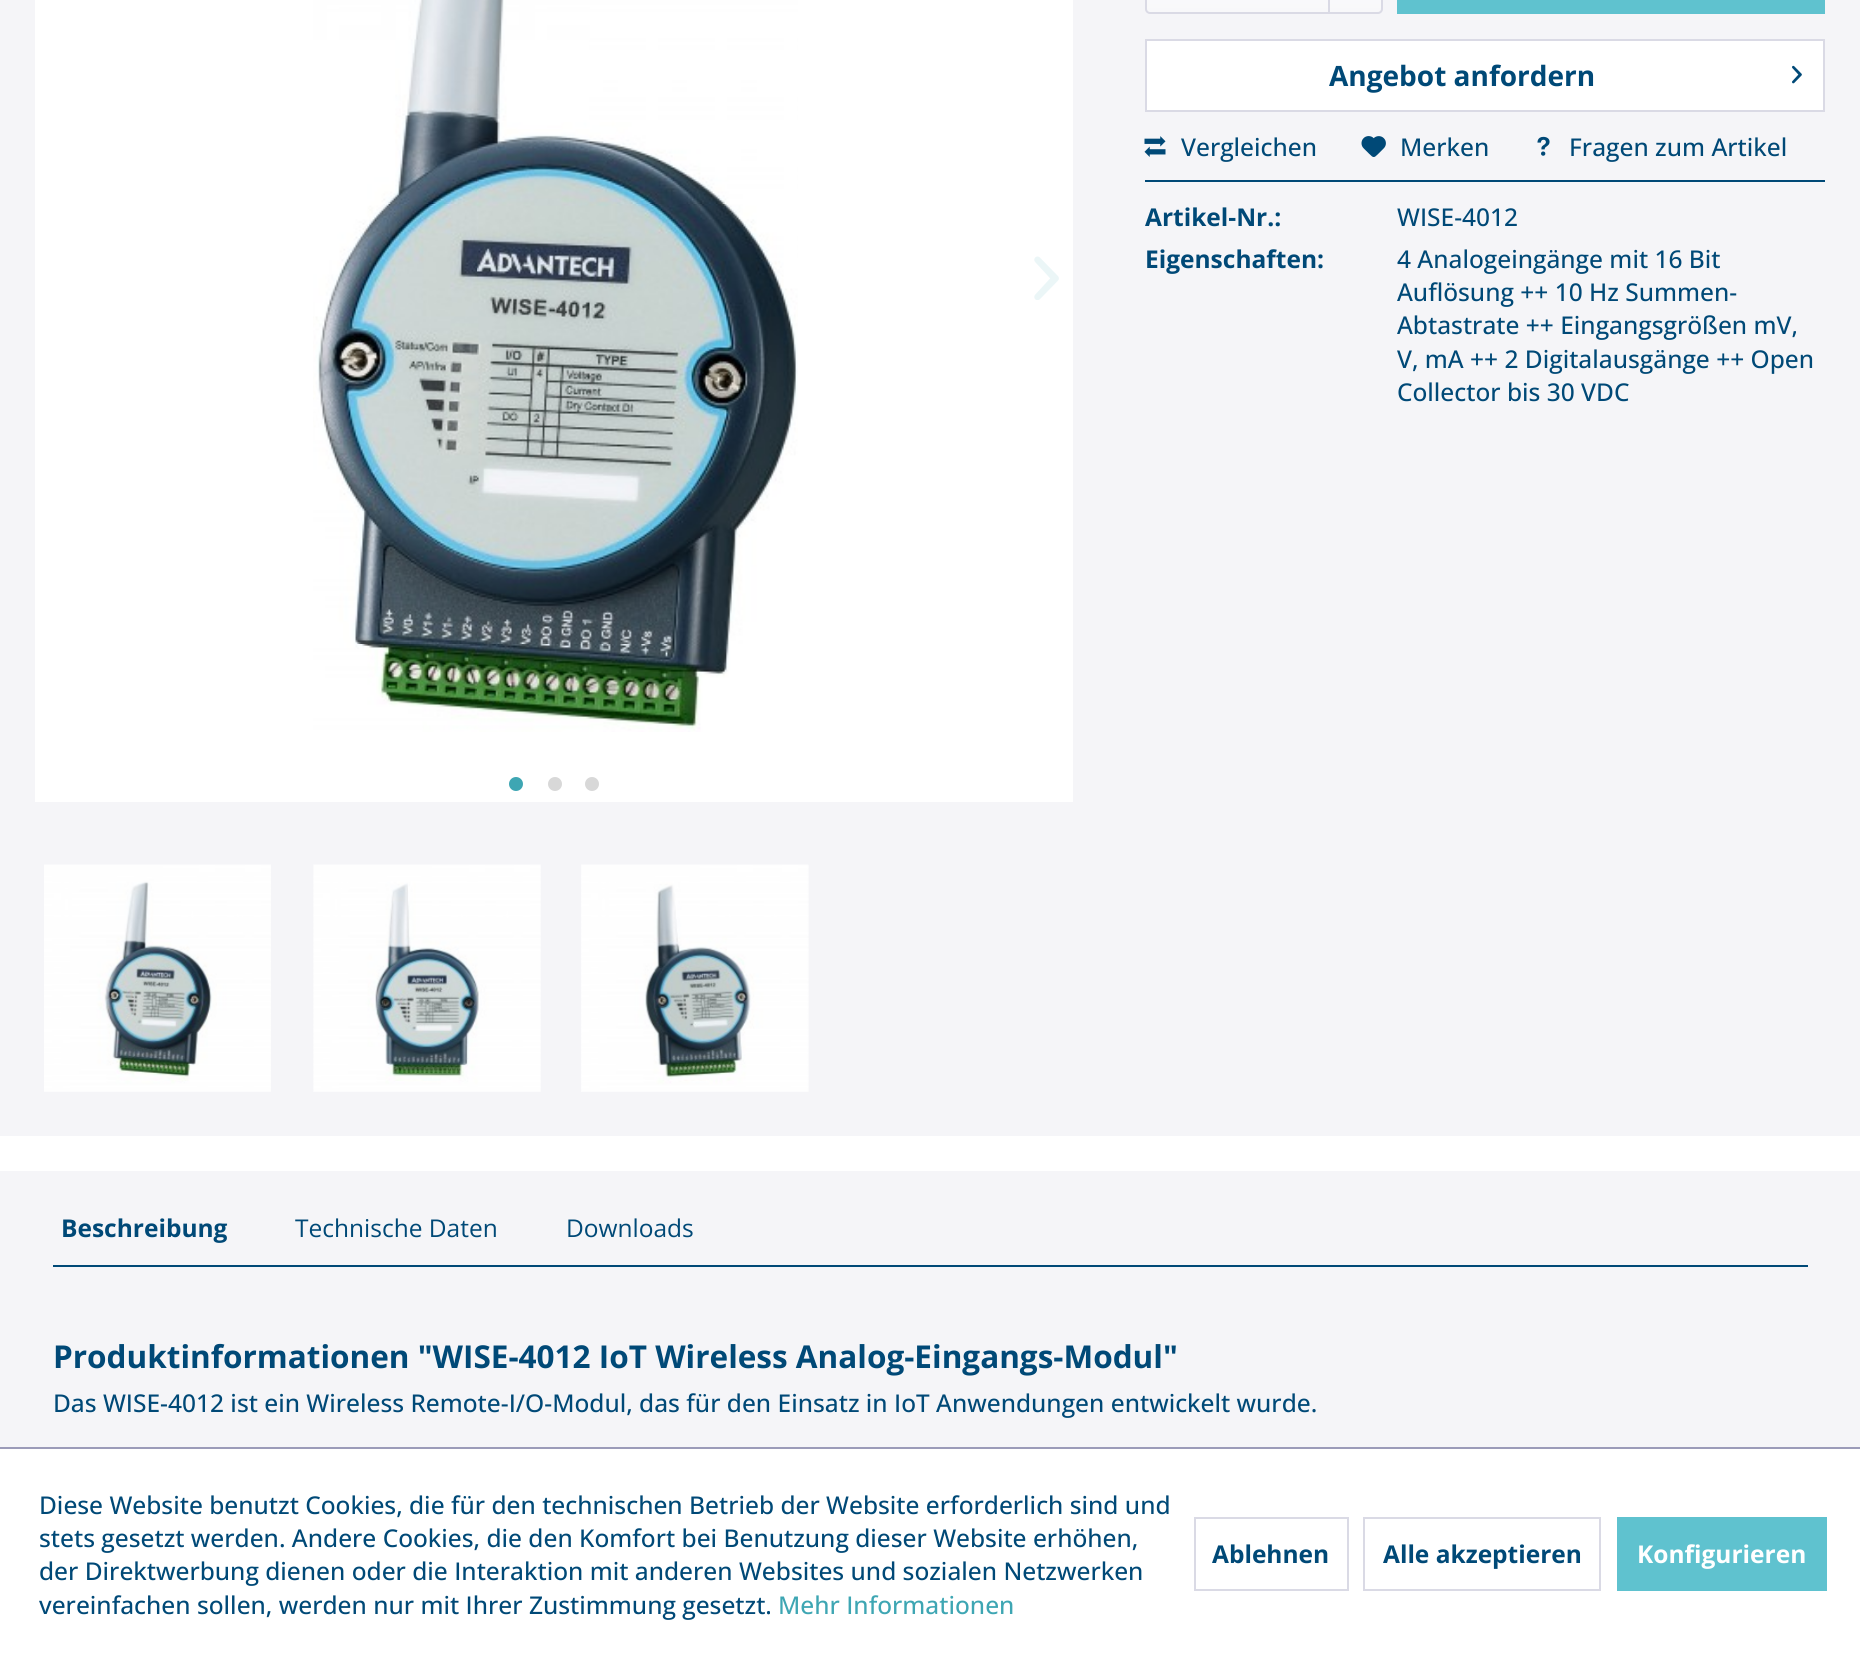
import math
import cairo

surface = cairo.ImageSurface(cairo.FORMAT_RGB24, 1860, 1659)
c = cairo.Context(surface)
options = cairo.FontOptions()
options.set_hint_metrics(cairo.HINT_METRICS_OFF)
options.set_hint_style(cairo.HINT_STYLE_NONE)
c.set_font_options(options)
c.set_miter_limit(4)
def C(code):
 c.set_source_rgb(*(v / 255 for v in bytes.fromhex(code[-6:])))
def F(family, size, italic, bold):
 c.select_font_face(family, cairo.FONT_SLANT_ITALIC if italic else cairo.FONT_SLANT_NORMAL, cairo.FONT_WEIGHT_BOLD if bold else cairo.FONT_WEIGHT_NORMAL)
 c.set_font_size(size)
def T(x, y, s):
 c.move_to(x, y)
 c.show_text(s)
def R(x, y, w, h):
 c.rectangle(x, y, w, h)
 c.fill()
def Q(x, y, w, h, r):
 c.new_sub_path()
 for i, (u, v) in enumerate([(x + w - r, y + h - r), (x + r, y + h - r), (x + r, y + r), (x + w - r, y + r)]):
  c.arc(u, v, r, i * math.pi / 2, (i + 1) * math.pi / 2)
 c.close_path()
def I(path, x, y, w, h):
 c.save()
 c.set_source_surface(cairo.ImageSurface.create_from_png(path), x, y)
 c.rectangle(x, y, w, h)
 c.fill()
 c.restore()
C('ffffff')
c.paint()
C('f5f5f8')
R(0,0,1860,1136)
C('ffffff')
R(35,0,1038,802)
I('1.png',313,0,485,732)
I('2.png',1034,256,25,44)
C('3ea6b3')
c.arc(516,784,7,0,2 * math.pi)
c.fill()
C('d8d8d8')
c.arc(555,784,7,0,2 * math.pi)
c.fill()
c.arc(592,784,7,0,2 * math.pi)
c.fill()
I('3.png',44,864,227,228)
I('4.png',313,864,228,228)
I('5.png',581,864,228,228)
gradient = cairo.LinearGradient(1264,-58,1264,12)
gradient.add_color_stop_rgba(0,1,1,1,1)
gradient.add_color_stop_rgba(1,0.973,0.973,0.98,1)
c.set_source(gradient)
Q(1146,-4,235,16,4)
c.fill()
Q(1146,-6,236,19,4)
C('dadae5')
c.stroke()
R(1328,0,2,12)
C('5fc2cf')
R(1397,0,428,14)
C('ffffff')
c.rectangle(1146,40,678,71)
c.fill_preserve()
C('dadae5')
c.stroke()
F('Open Sans',28,0,1)
C('004977')
T(1329,86,'Angebot anfordern')
I('6.png',1792,65,10,19)
R(1145,180,680,2)
I('7.png',1144,136,22,21)
F('Open Sans Medium',24.5,0,0)
T(1181,156,'Vergleichen')
I('8.png',1361,136,25,21)
T(1400,156,'Merken')
I('9.png',1537,136,13,20)
T(1569,156,'Fragen zum Artikel')
F('Open Sans',24.5,0,1)
T(1145,226,'Artikel-Nr.:')
F('Open Sans Medium',24.5,0,0)
T(1397,226,'WISE-4012')
F('Open Sans',24.5,0,1)
T(1145,268,'Eigenschaften:')
F('Open Sans Medium',24.5,0,0)
T(1397,268,'4 Analogeingänge mit 16 Bit')
T(1397,301,'Auflösung ++ 10 Hz Summen-')
T(1397,334,'Abtastrate ++ Eingangsgrößen mV,')
T(1397,368,'V, mA ++ 2 Digitalausgänge ++ Open')
T(1397,401,'Collector bis 30 VDC')
C('f5f5f8')
R(0,1171,1860,276)
F('Open Sans',24.5,0,1)
C('004977')
T(61,1237,'Beschreibung')
F('Open Sans',24.5,0,0)
T(295,1237,'Technische Daten')
T(566,1237,'Downloads')
R(53,1265,1755,2)
F('Open Sans',31.5,0,1)
T(53,1368,'Produktinformationen "WISE-4012 IoT Wireless Analog-Eingangs-Modul"')
F('Open Sans Medium',24.5,0,0)
T(53,1412,'Das WISE-4012 ist ein Wireless Remote-I/O-Modul, das für den Einsatz in IoT Anwendungen entwickelt wurde.')
C('9b9bb9')
R(0,1447,1860,2)
C('004977')
T(39,1514,'Diese Website benutzt Cookies, die für den technischen Betrieb der Website erforderlich sind und')
T(39,1547,'stets gesetzt werden. Andere Cookies, die den Komfort bei Benutzung dieser Website erhöhen,')
T(39,1580,'der Direktwerbung dienen oder die Interaktion mit anderen Websites und sozialen Netzwerken')
T(39,1614,'vereinfachen sollen, werden nur mit Ihrer Zustimmung gesetzt.')
C('3ea6b3')
T(778,1614,'Mehr Informationen')
c.rectangle(1195,1518,153,72)
C('dadae5')
c.stroke()
F('Open Sans',24.5,0,1)
C('004977')
T(1212,1563,'Ablehnen')
c.rectangle(1364,1518,236,72)
C('dadae5')
c.stroke()
C('004977')
T(1383,1563,'Alle akzeptieren')
C('5fc2cf')
R(1617,1517,210,74)
C('ffffff')
T(1637,1563,'Konfigurieren')
surface.write_to_png('o.png')
